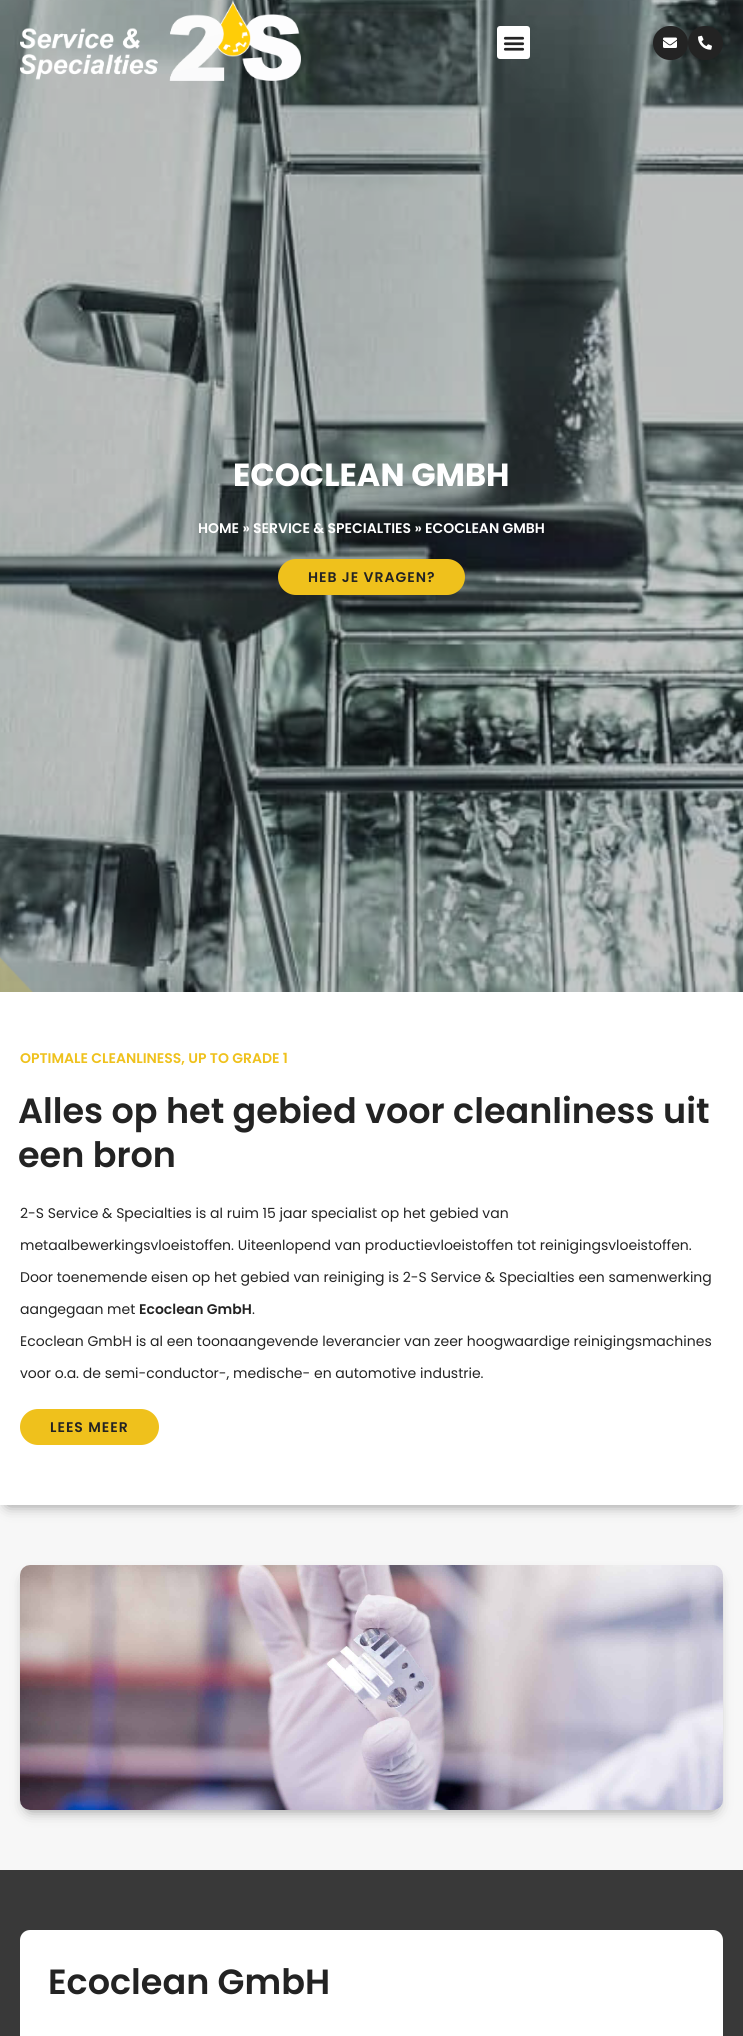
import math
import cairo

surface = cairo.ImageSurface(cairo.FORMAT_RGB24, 743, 2036)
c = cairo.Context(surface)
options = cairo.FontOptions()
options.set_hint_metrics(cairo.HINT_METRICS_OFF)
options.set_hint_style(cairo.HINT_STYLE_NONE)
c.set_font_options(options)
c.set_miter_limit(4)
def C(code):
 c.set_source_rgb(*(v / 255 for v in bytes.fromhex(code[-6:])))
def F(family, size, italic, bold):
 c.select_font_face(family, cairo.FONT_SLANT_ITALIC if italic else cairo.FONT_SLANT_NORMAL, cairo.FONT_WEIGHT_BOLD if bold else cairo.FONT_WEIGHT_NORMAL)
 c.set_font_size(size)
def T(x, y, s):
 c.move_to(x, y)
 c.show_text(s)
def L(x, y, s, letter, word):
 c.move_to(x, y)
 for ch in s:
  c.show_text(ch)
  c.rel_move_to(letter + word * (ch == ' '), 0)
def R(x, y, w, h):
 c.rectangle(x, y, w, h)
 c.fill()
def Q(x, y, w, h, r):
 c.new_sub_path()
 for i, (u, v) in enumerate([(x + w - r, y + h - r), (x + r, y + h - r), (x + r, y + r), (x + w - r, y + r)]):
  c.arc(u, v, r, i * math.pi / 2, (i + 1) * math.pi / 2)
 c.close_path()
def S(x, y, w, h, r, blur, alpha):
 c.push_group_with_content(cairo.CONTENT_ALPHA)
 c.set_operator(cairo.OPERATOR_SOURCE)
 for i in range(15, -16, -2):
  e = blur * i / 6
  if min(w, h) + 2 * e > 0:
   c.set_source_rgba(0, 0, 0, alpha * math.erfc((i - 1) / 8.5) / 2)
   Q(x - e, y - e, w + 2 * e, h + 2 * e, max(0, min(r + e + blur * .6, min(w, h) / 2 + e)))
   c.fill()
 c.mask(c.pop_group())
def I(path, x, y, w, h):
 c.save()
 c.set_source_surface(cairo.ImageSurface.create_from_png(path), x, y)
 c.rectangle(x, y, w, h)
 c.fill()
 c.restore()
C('ffffff')
c.paint()
I('5.png',0,0,743,992)
I('1.png',20,0,281,81)
C('ffffff')
Q(497,26,33,33,3)
c.fill()
I('2.png',503,36,22,15)
C('232323')
Q(653,26,35,34,17)
c.fill()
I('3.png',663,37,14,11)
Q(688,26,35,34,17)
c.fill()
I('4.png',698,35,14,15)
F('Poppins',32,0,1)
C('ffffff')
T(233,486,'ECOCLEAN GMBH')
F('Poppins SemiBold',14,0,0)
T(198,533,'HOME » SERVICE & SPECIALTIES » ECOCLEAN GMBH')
C('efc11c')
Q(278,559,187,36,18)
c.fill()
C('232323')
L(308,582,'HEB JE VRAGEN?',1,0)
I('6.png',0,957,33,35)
C('f7f7f7')
R(0,1505,743,365)
C('000000')
S(8,1007,727,497,0,7.5,.5)
C('ffffff')
R(0,992,743,513)
C('efc11c')
T(20,1063,'OPTIMALE CLEANLINESS, UP TO GRADE 1')
F('Poppins SemiBold',35,0,0)
C('232323')
T(18,1123,'Alles op het gebied voor cleanliness uit')
T(18,1167,'een bron')
F('Poppins',14,0,0)
T(20,1218,'2-S Service & Specialties is al ruim 15 jaar specialist op het gebied van')
T(20,1250,'metaalbewerkingsvloeistoffen. Uiteenlopend van productievloeistoffen tot reinigingsvloeistoffen.')
T(20,1282,'Door toenemende eisen op het gebied van reiniging is 2-S Service & Specialties een samenwerking')
T(20,1314,'aangegaan met')
F('Poppins SemiBold',14,0,0)
T(139,1314,'Ecoclean GmbH')
F('Poppins',14,0,0)
T(252,1314,'.')
T(20,1346,'Ecoclean GmbH is al een toonaangevende leverancier van zeer hoogwaardige reinigingsmachines')
T(20,1378,'voor o.a. de semi-conductor-, medische- en automotive industrie.')
C('efc11c')
Q(20,1409,139,36,18)
c.fill()
F('Poppins SemiBold',14,0,0)
C('232323')
L(50,1432,'LEES MEER',1,0)
C('000000')
S(28,1580,687,229,2,7.5,.5)
I('7.png',20,1565,703,245)
C('393939')
R(0,1870,743,166)
C('ffffff')
Q(20,1930,703,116,10)
c.fill()
F('Poppins SemiBold',35,0,0)
C('232323')
T(48,1994,'Ecoclean GmbH')
surface.write_to_png('o.png')
